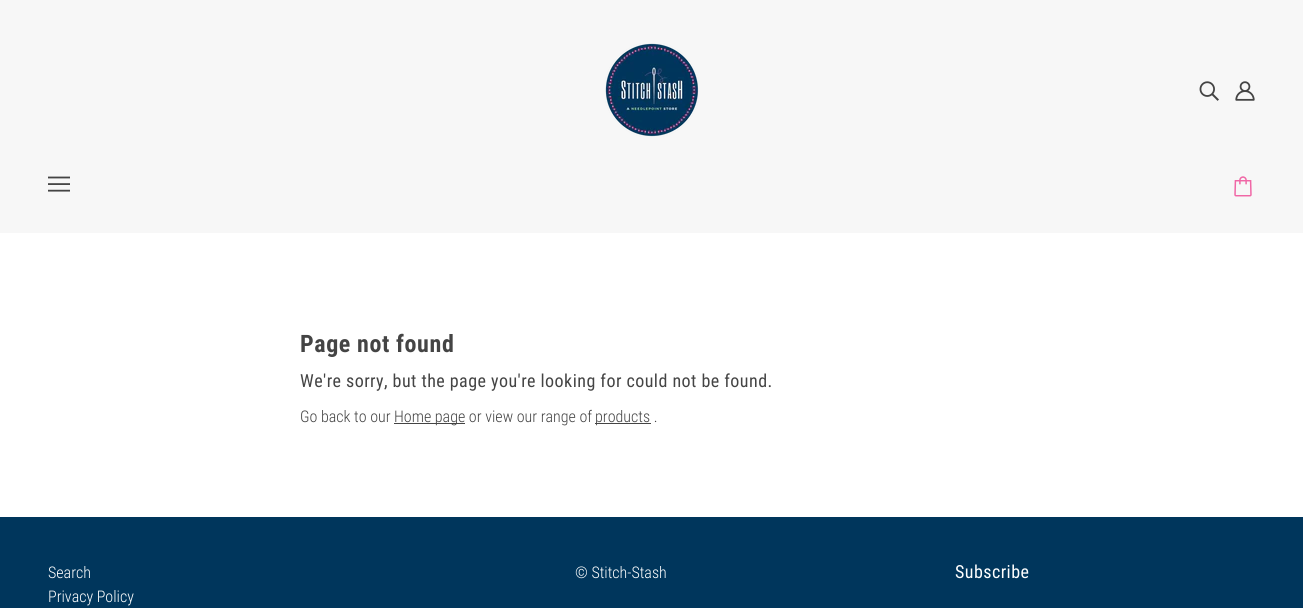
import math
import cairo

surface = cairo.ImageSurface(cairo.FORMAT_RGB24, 1303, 608)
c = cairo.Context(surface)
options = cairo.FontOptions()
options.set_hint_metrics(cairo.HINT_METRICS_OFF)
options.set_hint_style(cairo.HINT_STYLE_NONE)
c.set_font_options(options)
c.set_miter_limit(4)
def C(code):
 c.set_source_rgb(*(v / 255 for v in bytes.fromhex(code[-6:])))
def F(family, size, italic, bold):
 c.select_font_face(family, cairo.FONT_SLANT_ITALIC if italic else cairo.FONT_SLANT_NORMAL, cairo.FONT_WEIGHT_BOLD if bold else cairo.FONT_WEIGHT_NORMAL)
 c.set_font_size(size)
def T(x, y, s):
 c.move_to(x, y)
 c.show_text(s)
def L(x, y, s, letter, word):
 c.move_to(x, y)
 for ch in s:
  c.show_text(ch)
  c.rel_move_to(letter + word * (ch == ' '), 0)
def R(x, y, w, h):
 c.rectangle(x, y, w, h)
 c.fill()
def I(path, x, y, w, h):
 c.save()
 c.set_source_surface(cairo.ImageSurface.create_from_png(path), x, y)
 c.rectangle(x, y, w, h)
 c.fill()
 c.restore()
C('ffffff')
c.paint()
C('f7f7f7')
R(0,0,1303,233)
I('1.png',605,43,94,94)
I('2.png',1199,81,20,20)
I('3.png',1235,81,20,20)
I('4.png',48,176,22,16)
I('5.png',1234,176,18,21)
F('Roboto Condensed',24,0,1)
C('444444')
L(300,352,'Page not found',.6,0)
F('Roboto Condensed',18,0,0)
L(300,387,'We\'re sorry, but the page you\'re looking for could not be found.',.45,0)
F('Roboto Condensed Light',16,0,0)
T(300,422,'Go back to our')
R(394,423,71,1)
T(394,422,'Home page or view our range of')
R(595,423,56,1)
T(595,422,'products .')
C('00365c')
R(0,517,1303,91)
C('ffffff')
T(48,578,'Search')
T(48,602,'Privacy Policy')
T(575,578,'© Stitch-Stash')
F('Roboto Condensed',18,0,0)
L(955,578,'Subscribe',.45,0)
surface.write_to_png('o.png')
